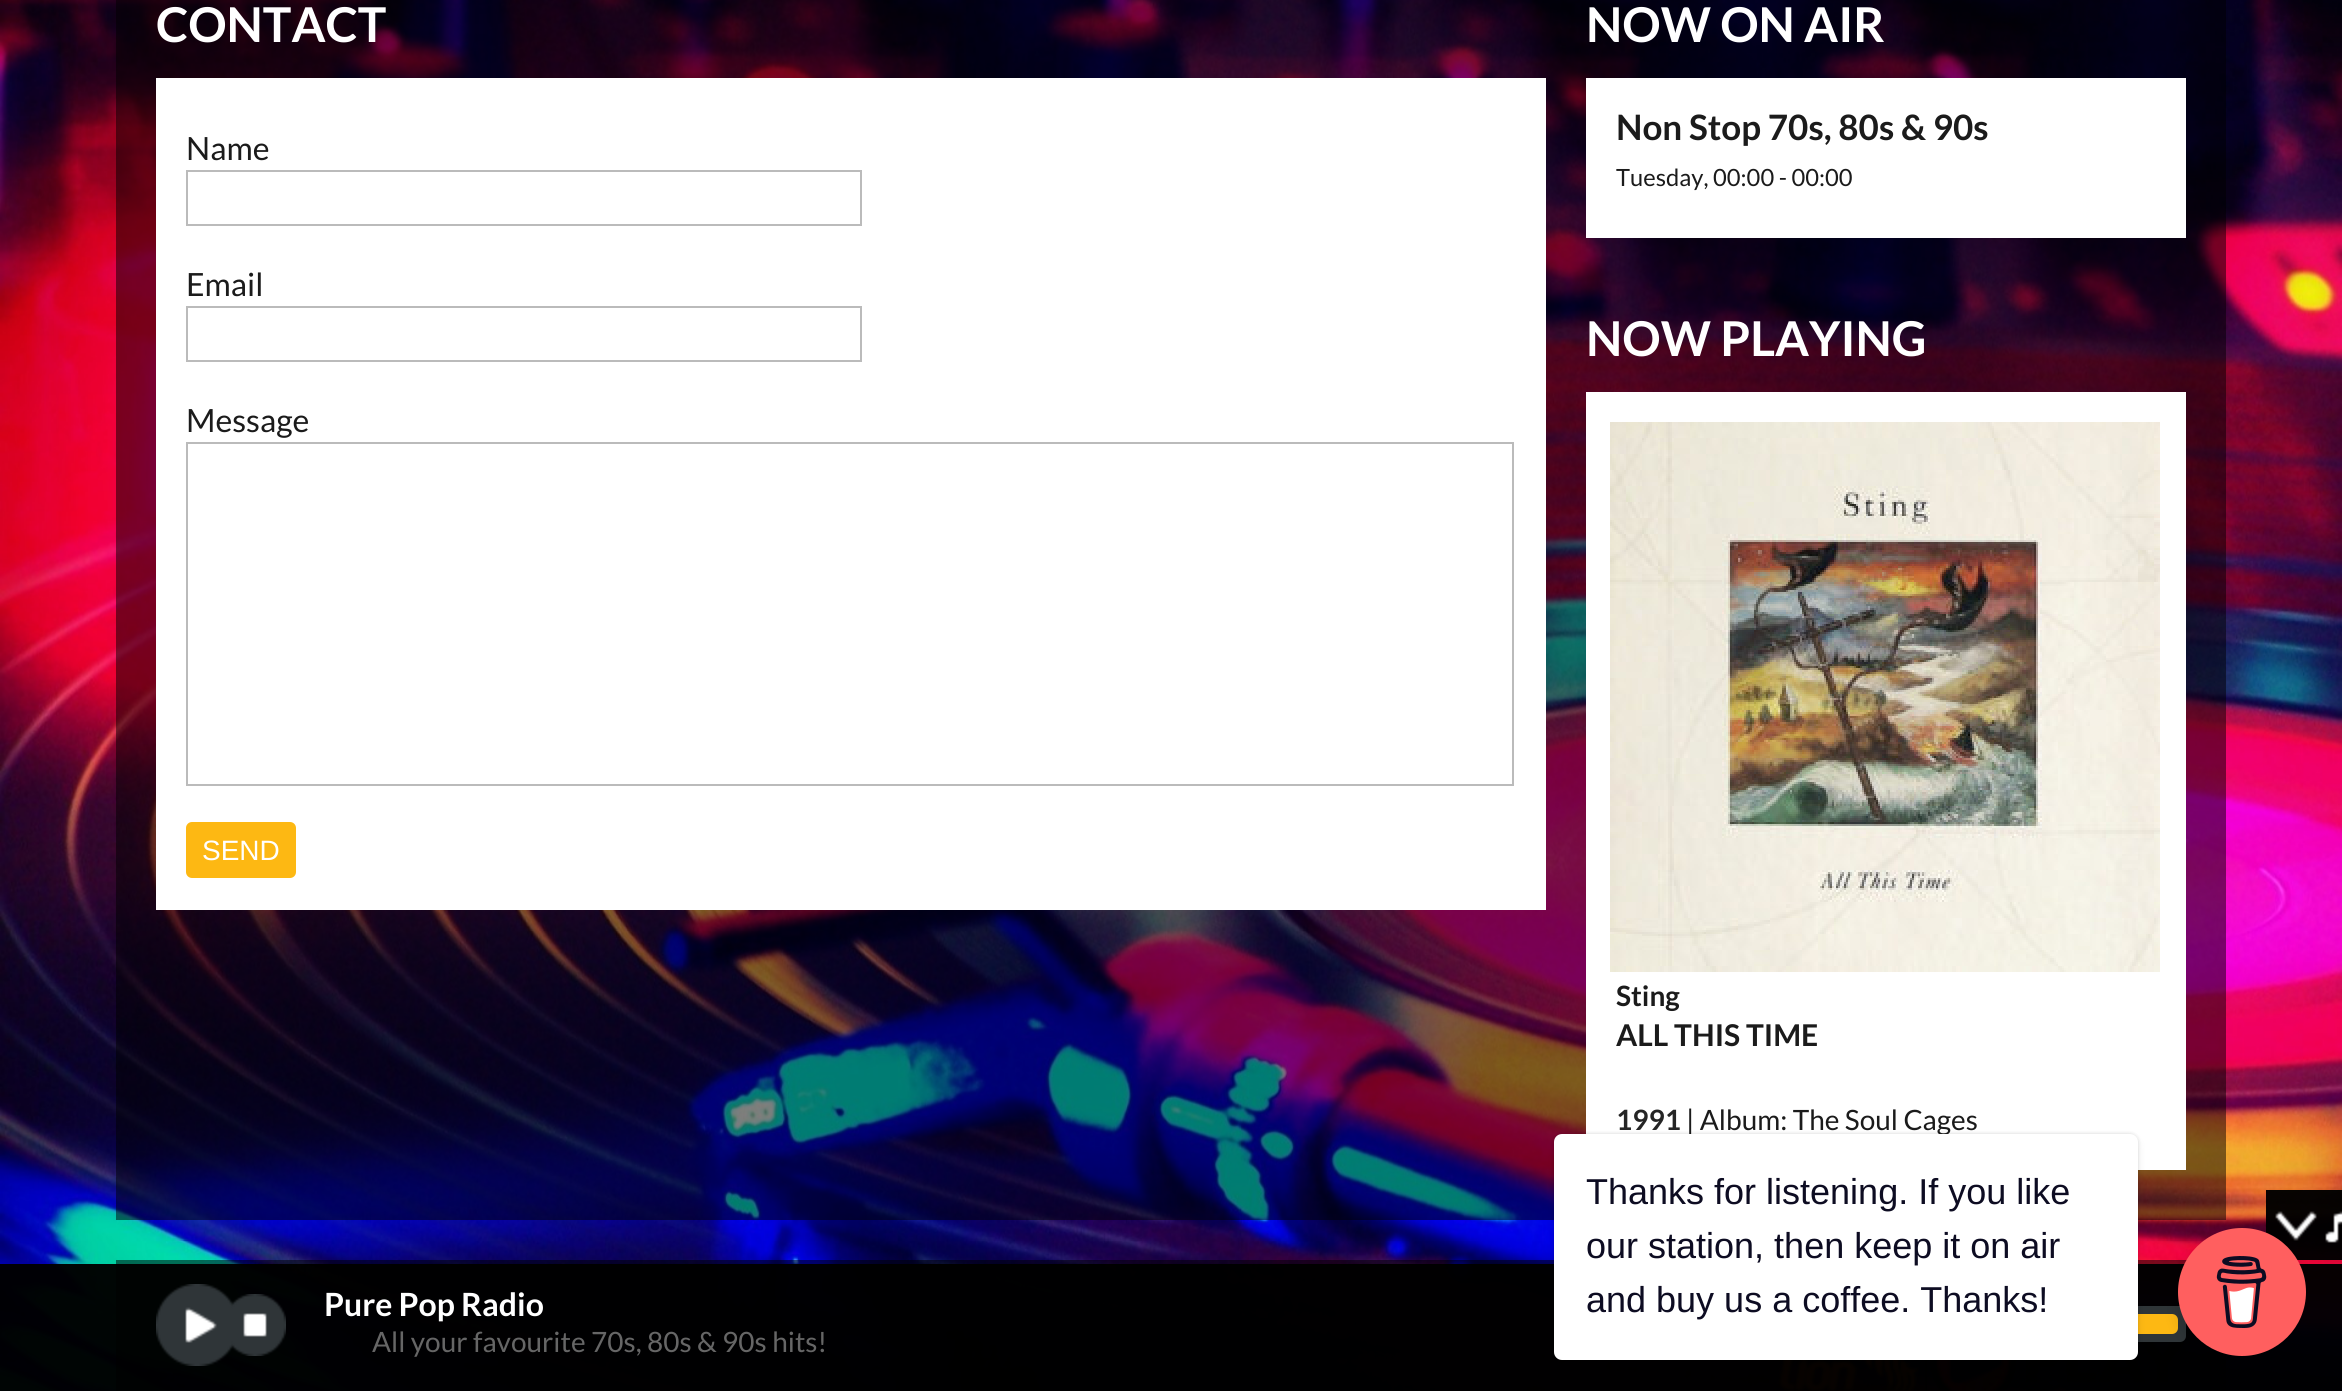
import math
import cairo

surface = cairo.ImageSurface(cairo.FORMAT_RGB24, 2342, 1391)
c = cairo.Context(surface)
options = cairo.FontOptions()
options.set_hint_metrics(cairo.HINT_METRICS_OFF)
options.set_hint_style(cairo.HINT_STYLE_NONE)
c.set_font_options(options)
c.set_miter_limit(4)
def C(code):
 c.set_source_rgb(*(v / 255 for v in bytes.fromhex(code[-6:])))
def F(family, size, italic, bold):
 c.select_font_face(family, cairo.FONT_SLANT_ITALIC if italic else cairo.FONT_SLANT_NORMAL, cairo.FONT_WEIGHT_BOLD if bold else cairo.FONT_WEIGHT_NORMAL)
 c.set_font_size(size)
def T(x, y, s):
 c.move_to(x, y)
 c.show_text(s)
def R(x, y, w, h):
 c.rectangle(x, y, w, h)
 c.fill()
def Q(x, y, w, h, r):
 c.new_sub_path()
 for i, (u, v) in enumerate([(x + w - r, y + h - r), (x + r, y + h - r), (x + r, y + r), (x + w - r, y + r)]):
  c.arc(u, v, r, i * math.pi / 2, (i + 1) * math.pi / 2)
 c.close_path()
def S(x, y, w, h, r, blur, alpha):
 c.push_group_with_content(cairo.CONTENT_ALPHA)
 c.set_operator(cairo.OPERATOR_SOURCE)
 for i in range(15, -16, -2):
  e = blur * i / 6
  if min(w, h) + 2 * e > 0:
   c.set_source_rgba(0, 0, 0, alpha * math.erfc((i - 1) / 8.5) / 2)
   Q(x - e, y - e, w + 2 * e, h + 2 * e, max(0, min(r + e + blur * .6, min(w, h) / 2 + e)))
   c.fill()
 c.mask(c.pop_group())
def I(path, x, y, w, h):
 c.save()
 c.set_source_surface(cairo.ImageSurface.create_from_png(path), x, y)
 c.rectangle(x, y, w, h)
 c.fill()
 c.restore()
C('ffffff')
c.paint()
I('1.png',0,0,2342,1391)
c.set_source_rgba(0,0,0,0.5)
R(116,0,2110,1220)
F('Lato',48,0,1)
C('ffffff')
T(156,42,'CONTACT')
R(156,78,1390,832)
F('Lato',32,0,0)
C('1b1b1b')
T(186,160,'Name')
c.rectangle(187,171,674,54)
C('bbbbbb')
c.stroke()
C('1b1b1b')
T(186,296,'Email')
c.rectangle(187,307,674,54)
C('bbbbbb')
c.stroke()
C('1b1b1b')
T(186,432,'Message')
c.rectangle(187,443,1326,342)
C('bbbbbb')
c.stroke()
C('fdb813')
Q(186,822,110,56,6)
c.fill()
F('Liberation Sans',28,0,0)
C('ffffff')
T(202,860,'SEND')
F('Lato',48,0,1)
T(1586,42,'NOW ON AIR')
R(1586,78,600,160)
F('Lato',35,0,1)
C('1b1b1b')
T(1616,140,'Non Stop 70s, 80s & 90s')
F('Lato',23.75,0,0)
T(1616,186,'Tuesday, 00:00 - 00:00')
F('Lato',48,0,1)
C('ffffff')
T(1586,356,'NOW PLAYING')
R(1586,392,600,778)
I('2.png',1610,422,550,550)
F('Lato',28,0,1)
C('1b1b1b')
T(1616,1006,'Sting')
F('Lato',30,0,1)
T(1616,1046,'ALL THIS TIME')
F('Lato',28,0,1)
C('252525')
T(1616,1130,'1991')
F('Lato',28,0,0)
C('1b1b1b')
T(1686,1130,'| Album: The Soul Cages')
c.set_source_rgba(0,0,0,0.5)
R(116,1260,2110,131)
I('4.png',1777,1341,408,50)
c.set_source_rgba(0,0,0,0.97)
R(0,1264,2342,127)
C('2f3538')
Q(1990,1306,196,36,6)
c.fill()
C('fdb813')
Q(1998,1314,180,20,6)
c.fill()
C('000000')
S(1554,1134,584,226,8,2,.15)
S(1554,1138,584,226,8,5,.05)
C('ffffff')
Q(1554,1134,584,226,8)
c.fill()
F('Liberation Sans',36,0,0)
C('0d0c22')
T(1586,1204,'Thanks for listening. If you like')
T(1586,1258,'our station, then keep it on air')
T(1586,1312,'and buy us a coffee. Thanks!')
I('5.png',2266,1190,76,70)
C('000000')
S(2178,1236,128,128,64,8,.15)
C('ff5f5f')
c.arc(2242,1292,64,0,2 * math.pi)
c.fill()
I('3.png',2216,1256,51,72)
I('7.png',229,1294,57,62)
I('6.png',156,1284,77,82)
F('Lato',32,0,1)
C('ffffff')
T(324,1316,'Pure Pop Radio')
F('Lato',28,0,0)
C('666666')
T(372,1352,'All your favourite 70s, 80s & 90s hits!')
surface.write_to_png('o.png')
